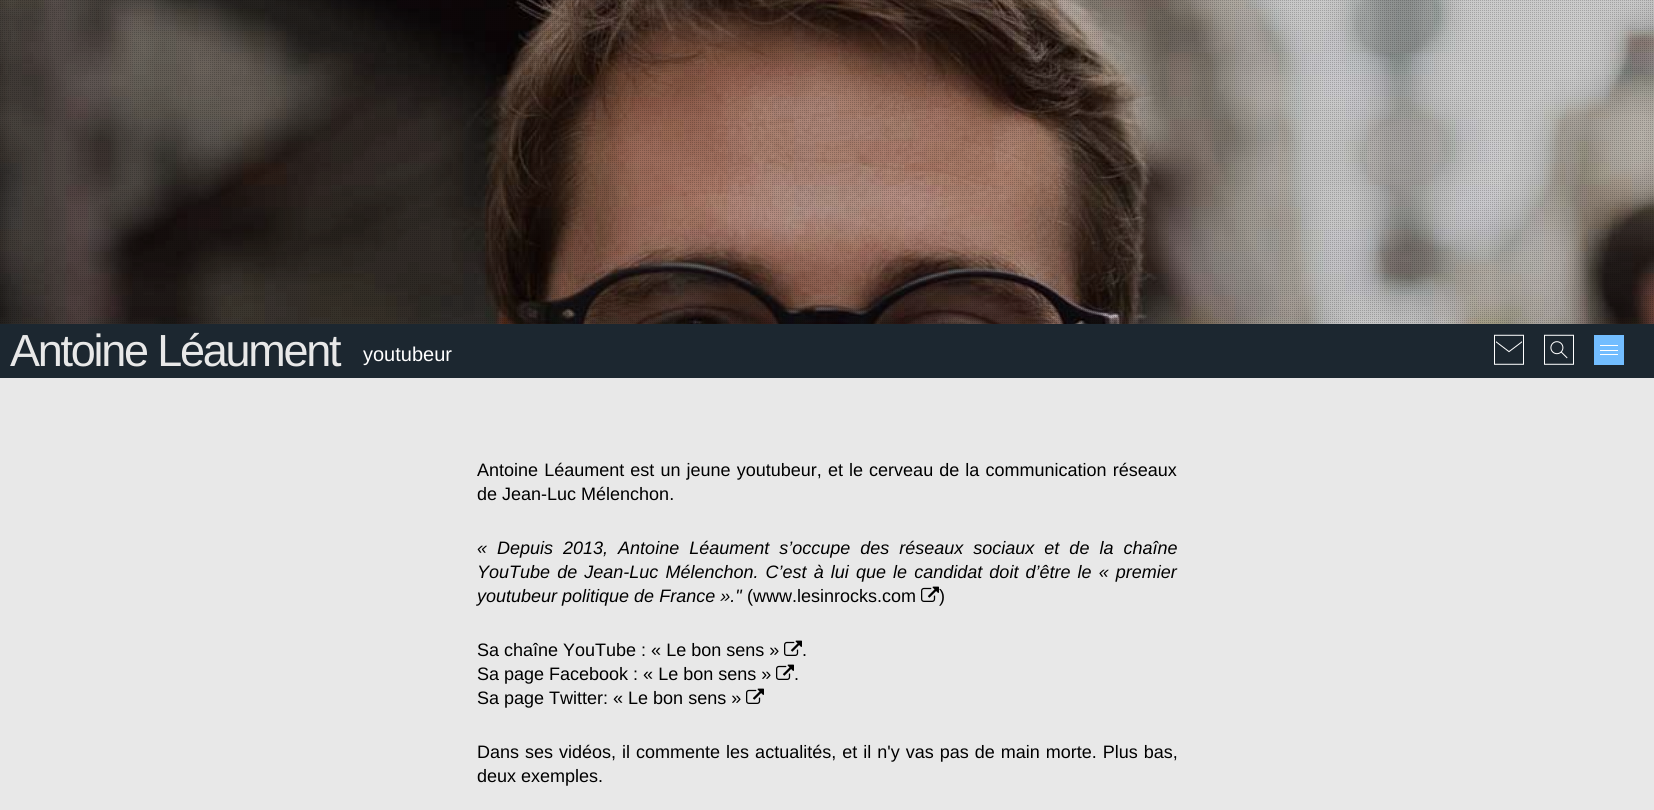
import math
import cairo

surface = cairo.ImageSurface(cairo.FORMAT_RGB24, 1654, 810)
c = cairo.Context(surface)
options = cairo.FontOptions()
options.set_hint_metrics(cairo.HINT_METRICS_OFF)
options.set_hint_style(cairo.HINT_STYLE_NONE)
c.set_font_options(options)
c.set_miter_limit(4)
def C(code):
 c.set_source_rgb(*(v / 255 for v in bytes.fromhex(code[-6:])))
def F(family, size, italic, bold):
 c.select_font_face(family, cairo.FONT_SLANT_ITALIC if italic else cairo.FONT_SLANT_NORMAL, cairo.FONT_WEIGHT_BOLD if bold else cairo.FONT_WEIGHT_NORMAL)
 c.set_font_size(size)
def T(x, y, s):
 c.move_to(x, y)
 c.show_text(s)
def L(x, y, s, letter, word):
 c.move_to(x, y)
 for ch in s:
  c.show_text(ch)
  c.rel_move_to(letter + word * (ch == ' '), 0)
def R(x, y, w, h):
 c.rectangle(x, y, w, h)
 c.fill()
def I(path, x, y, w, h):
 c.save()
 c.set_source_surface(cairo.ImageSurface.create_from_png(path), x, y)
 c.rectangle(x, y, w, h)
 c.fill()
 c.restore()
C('ffffff')
c.paint()
I('1.png',0,0,1654,324)
I('2.png',0,0,1653,323)
C('e8e8e8')
R(0,378,1654,432)
C('1c2730')
R(0,324,1654,54)
F('Liberation Sans',45,0,0)
C('e8e8e8')
L(10,366,'Antoine Léaument',-2.25,0)
F('Liberation Sans',20,0,0)
C('ffffff')
T(363,361,'youtubeur')
I('3.png',1494,334,30,31)
I('4.png',1544,334,30,31)
C('72bdff')
R(1594,335,30,30)
C('ffffff')
R(1600,345,18,1)
R(1600,350,18,1)
R(1600,354,18,1)
F('Liberation Sans',18,0,0)
C('000000')
L(477,476,'Antoine Léaument est un jeune youtubeur, et le cerveau de la communication réseaux',0,1.1)
T(477,500,'de Jean-Luc Mélenchon.')
F('Liberation Sans',18,1,0)
L(477,554,'« Depuis 2013, Antoine Léaument s’occupe des réseaux sociaux et de la chaîne',0,5)
L(477,578,'YouTube de Jean-Luc Mélenchon. C’est à lui que le candidat doit d’être le « premier',0,2.1)
T(477,602,'youtubeur politique de France »."')
F('Liberation Sans',18,0,0)
T(747,602,'(www.lesinrocks.com')
I('5.png',921,586,18,16)
T(939,602,')')
T(477,656,'Sa chaîne YouTube : « Le bon sens »')
I('5.png',784,640,18,16)
T(802,656,'.')
T(477,680,'Sa page Facebook : « Le bon sens »')
I('5.png',776,664,18,16)
T(794,680,'.')
T(477,704,'Sa page Twitter: « Le bon sens »')
I('5.png',746,688,18,16)
L(477,758,'Dans ses vidéos, il commente les actualités, et il n\'y vas pas de main morte. Plus bas,',0,1)
T(477,782,'deux exemples.')
surface.write_to_png('o.png')
